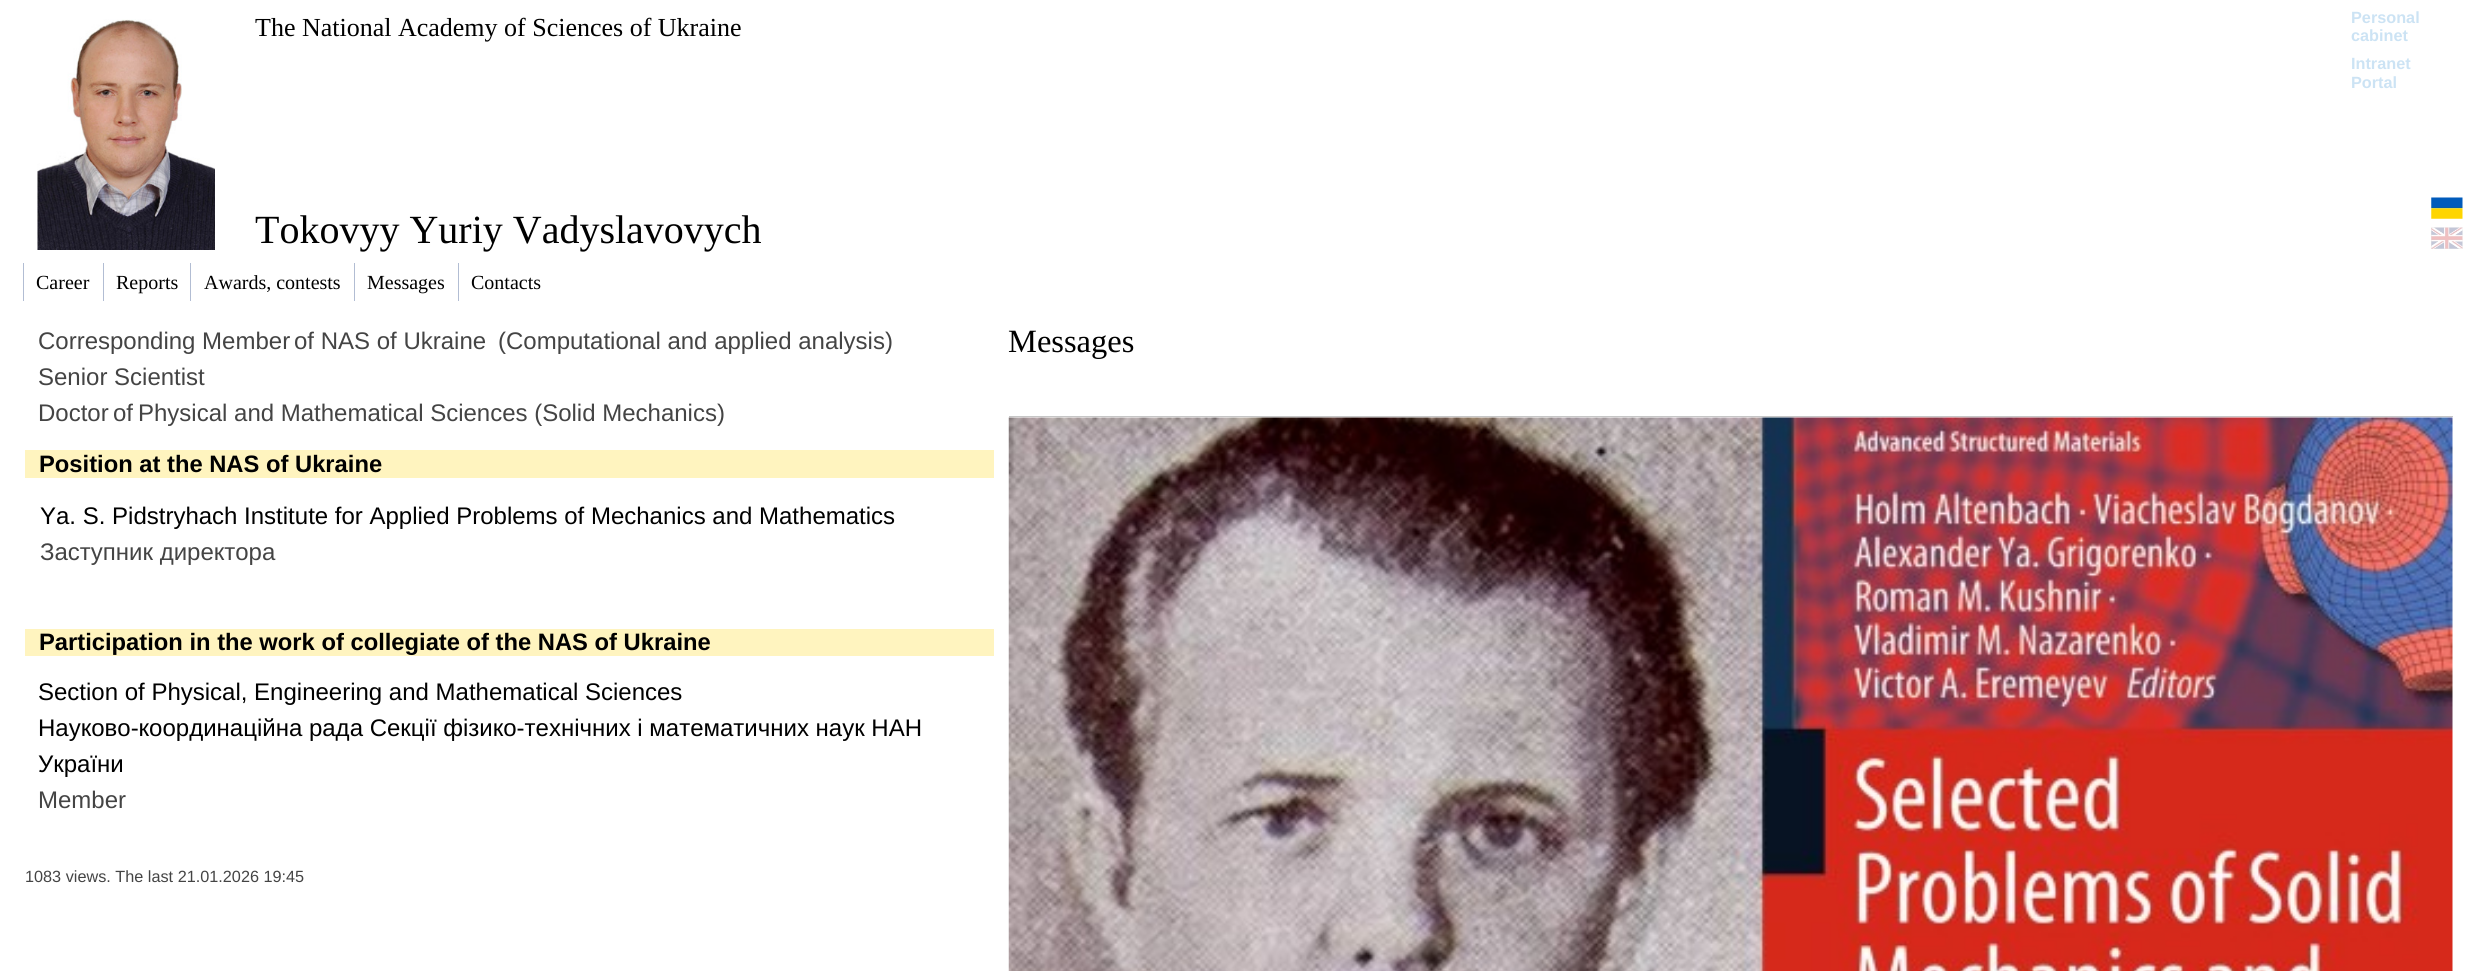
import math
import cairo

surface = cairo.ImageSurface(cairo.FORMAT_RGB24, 2473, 971)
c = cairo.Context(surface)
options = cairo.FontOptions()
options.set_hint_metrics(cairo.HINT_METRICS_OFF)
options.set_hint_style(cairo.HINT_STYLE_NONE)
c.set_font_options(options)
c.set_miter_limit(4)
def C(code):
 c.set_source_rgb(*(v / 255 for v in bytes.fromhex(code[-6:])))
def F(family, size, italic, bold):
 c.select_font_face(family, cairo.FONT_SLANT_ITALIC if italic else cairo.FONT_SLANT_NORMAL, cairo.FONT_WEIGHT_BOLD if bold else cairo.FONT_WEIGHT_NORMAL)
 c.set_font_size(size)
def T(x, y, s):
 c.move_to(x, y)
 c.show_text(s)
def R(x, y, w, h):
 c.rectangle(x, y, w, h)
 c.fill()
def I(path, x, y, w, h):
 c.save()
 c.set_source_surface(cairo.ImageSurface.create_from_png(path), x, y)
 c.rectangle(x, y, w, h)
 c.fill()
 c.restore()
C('ffffff')
c.paint()
I('1.png',37,19,178,231)
F('Liberation Serif',26,0,0)
C('000000')
T(255,36,'The National Academy of Sciences of Ukraine')
F('Liberation Sans',16.25,0,1)
C('cce3f4')
T(2351,23,'Personal')
T(2351,41,'cabinet')
T(2351,69,'Intranet')
T(2351,88,'Portal')
F('Liberation Serif',40,0,0)
C('000000')
T(255,243,'Tokovyy Yuriy Vadyslavovych')
I('2.png',2431,197,32,22)
I('3.png',2431,227,32,22)
C('b2bdd3')
R(23,263,1,38)
F('Liberation Serif',20,0,0)
C('000000')
T(36,289,'Career')
C('b2bdd3')
R(103,263,1,38)
C('000000')
T(116,289,'Reports')
C('b2bdd3')
R(190,263,1,38)
C('000000')
T(204,289,'Awards, contests')
C('b2bdd3')
R(354,263,1,38)
C('000000')
T(367,289,'Messages')
C('b2bdd3')
R(458,263,1,38)
C('000000')
T(471,289,'Contacts')
F('Liberation Sans',24,0,0)
C('444444')
T(38,349,'Corresponding Member')
T(294,349,'of NAS of Ukraine')
T(498,349,'(Computational and applied analysis)')
T(38,385,'Senior Scientist')
T(38,421,'Doctor')
T(113,421,'of')
T(138,421,'Physical and Mathematical Sciences (Solid Mechanics)')
C('fff4bf')
R(25,450,969,28)
F('Liberation Sans',23.75,0,1)
C('000000')
T(39,472,'Position at the NAS of Ukraine')
F('Liberation Sans',24,0,0)
T(40,524,'Ya. S. Pidstryhach Institute for Applied Problems of Mechanics and Mathematics')
C('444444')
T(40,560,'Заступник директора')
C('fff4bf')
R(25,629,969,27)
F('Liberation Sans',23.75,0,1)
C('000000')
T(39,650,'Participation in the work of collegiate of the NAS of Ukraine')
F('Liberation Sans',24,0,0)
T(38,700,'Section of Physical, Engineering and Mathematical Sciences')
T(38,736,'Науково-координаційна рада Секції фізико-технічних і математичних наук НАН')
T(38,772,'України')
C('444444')
T(38,808,'Member')
F('Liberation Sans',16.25,0,0)
T(25,882,'1083 views. The last 21.01.2026 19:45')
F('Liberation Serif',32.5,0,0)
C('000000')
T(1008,352,'Messages')
C('c6c6c6')
R(1009,416,1444,1)
I('4.png',1008,417,1445,554)
surface.write_to_png('o.png')
